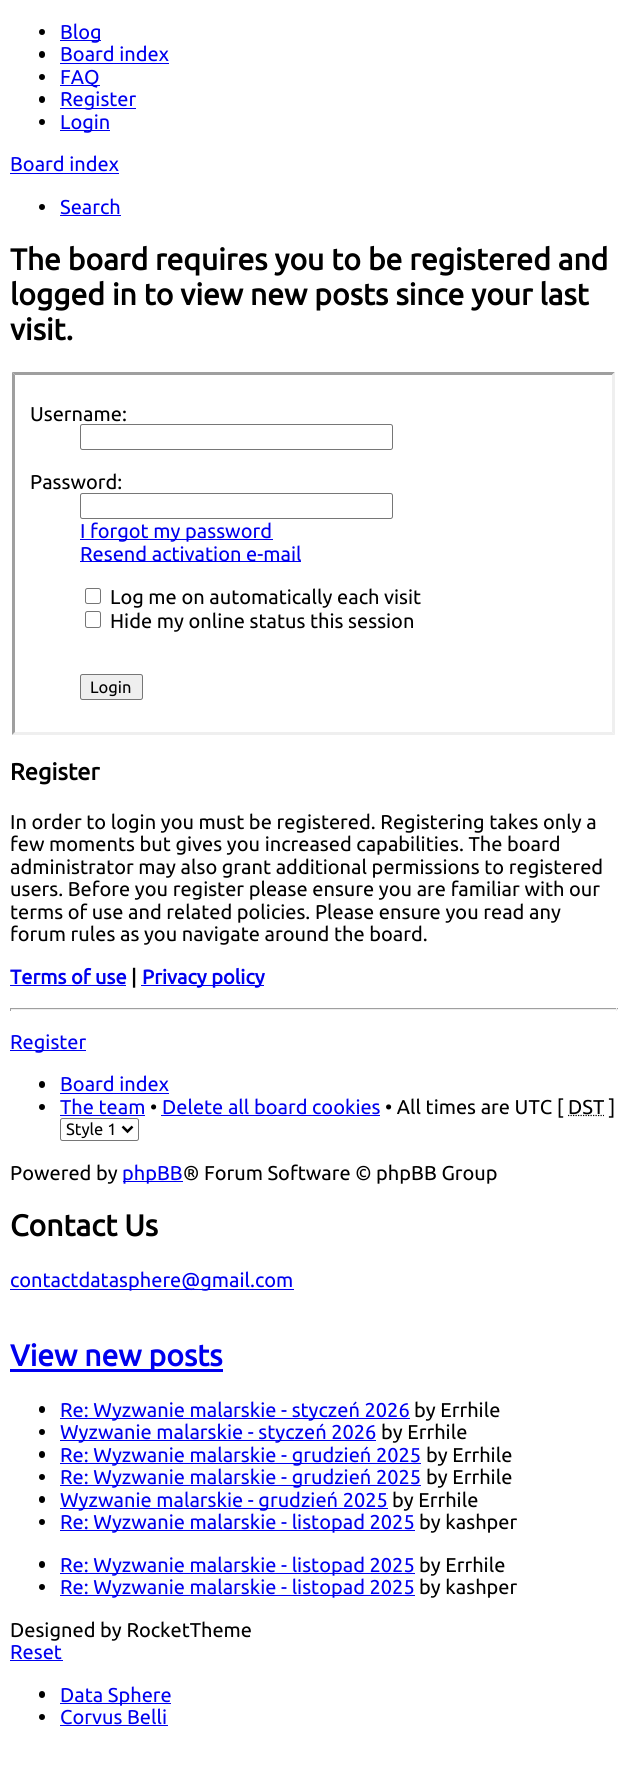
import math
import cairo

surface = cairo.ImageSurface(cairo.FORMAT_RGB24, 627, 1777)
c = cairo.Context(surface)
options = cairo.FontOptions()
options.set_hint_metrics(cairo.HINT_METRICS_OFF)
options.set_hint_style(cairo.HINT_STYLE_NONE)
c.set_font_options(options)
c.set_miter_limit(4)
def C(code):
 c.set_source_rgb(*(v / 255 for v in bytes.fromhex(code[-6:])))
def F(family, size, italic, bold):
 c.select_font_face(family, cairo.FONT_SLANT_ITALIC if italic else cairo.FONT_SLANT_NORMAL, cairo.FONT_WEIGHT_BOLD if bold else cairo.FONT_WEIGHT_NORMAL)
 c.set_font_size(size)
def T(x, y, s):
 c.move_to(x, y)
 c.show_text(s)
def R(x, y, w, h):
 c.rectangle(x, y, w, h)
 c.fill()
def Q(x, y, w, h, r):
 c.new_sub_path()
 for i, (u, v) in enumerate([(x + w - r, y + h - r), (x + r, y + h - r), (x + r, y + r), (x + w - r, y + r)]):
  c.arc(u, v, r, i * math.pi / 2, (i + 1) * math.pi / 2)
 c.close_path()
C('ffffff')
c.paint()
C('000000')
c.arc(42,32,3,0,2 * math.pi)
c.fill()
C('0000ee')
R(60,40,41,1)
F('Ubuntu',20,0,0)
T(60,39,'Blog')
C('000000')
Q(39,51,6,7,3)
c.fill()
C('0000ee')
T(60,61,'Board index')
R(60,63,109,1)
C('000000')
c.new_path()
c.arc(42,77,3,0,2 * math.pi)
c.fill()
C('0000ee')
R(60,85,40,1)
T(60,84,'FAQ')
C('000000')
Q(39,96,6,7,3)
c.fill()
C('0000ee')
R(60,108,76,1)
T(60,106,'Register')
C('000000')
c.new_path()
c.arc(42,122,3,0,2 * math.pi)
c.fill()
C('0000ee')
R(60,130,50,1)
T(60,129,'Login')
T(10,171,'Board index')
R(10,173,109,1)
C('000000')
c.new_path()
c.arc(42,207,3,0,2 * math.pi)
c.fill()
C('0000ee')
T(60,214,'Search')
R(60,215,61,1)
F('Ubuntu',30,0,1)
C('000000')
T(10,270,'The board requires you to be registered and')
T(10,305,'logged in to view new posts since your last')
T(10,340,'visit.')
C('9f9f9f')
c.new_path()
c.move_to(12,372)
c.line_to(615,372)
c.line_to(612,375)
c.line_to(15,375)
c.close_path()
c.fill()
C('efefef')
c.new_path()
c.move_to(615,372)
c.line_to(615,735)
c.line_to(612,732)
c.line_to(612,375)
c.close_path()
c.fill()
c.new_path()
c.move_to(615,735)
c.line_to(12,735)
c.line_to(15,732)
c.line_to(612,732)
c.close_path()
c.fill()
C('9f9f9f')
c.new_path()
c.move_to(12,735)
c.line_to(12,372)
c.line_to(15,375)
c.line_to(15,732)
c.close_path()
c.fill()
F('Ubuntu',20,0,0)
C('000000')
T(30,421,'Username:')
Q(80.5,424.5,312,25,2)
C('767676')
c.set_line_width(1)
c.stroke()
C('000000')
T(30,489,'Password:')
Q(80.5,493.5,312,25,2)
C('767676')
c.stroke()
C('0000ee')
R(80,539,193,1)
T(80,538,'I forgot my password')
R(80,561,221,1)
T(80,561,'Resend activation e-mail')
Q(85.5,588.5,15,15,2)
C('767676')
c.stroke()
C('000000')
T(110,604,'Log me on automatically each visit')
Q(85.5,611.5,15,16,2)
C('767676')
c.stroke()
C('000000')
T(110,628,'Hide my online status this session')
C('efefef')
Q(80.5,674.5,62,25,2)
c.fill_preserve()
C('767676')
c.stroke()
F('Ubuntu',16.5,0,0)
C('000000')
T(90,693,'Login')
F('Ubuntu',23.5,0,1)
T(10,780,'Register')
F('Ubuntu',20,0,0)
T(10,829,'In order to login you must be registered. Registering takes only a')
T(10,851,'few moments but gives you increased capabilities. The board')
T(10,874,'administrator may also grant additional permissions to registered')
T(10,896,'users. Before you register please ensure you are familiar with our')
T(10,919,'terms of use and related policies. Please ensure you read any')
T(10,941,'forum rules as you navigate around the board.')
F('Ubuntu',20,0,1)
C('0000ee')
T(10,984,'Terms of use')
R(10,985,116,1)
C('000000')
T(131,984,'|')
C('0000ee')
R(141,985,123,1)
T(142,984,'Privacy policy')
C('9f9f9f')
R(10,1008,608,1)
C('eeeeee')
R(616,1008,1,3)
R(10,1009,608,1)
C('9f9f9f')
R(10,1008,1,3)
C('0000ee')
R(10,1050,76,1)
F('Ubuntu',20,0,0)
T(10,1049,'Register')
C('000000')
Q(39,1081,6,7,3)
c.fill()
C('0000ee')
T(60,1091,'Board index')
R(60,1093,109,1)
C('000000')
c.new_path()
c.arc(42,1107,3,0,2 * math.pi)
c.fill()
C('0000ee')
T(60,1114,'The team')
R(60,1115,85,1)
C('000000')
T(150,1114,'•')
C('0000ee')
T(162,1114,'Delete all board cookies')
R(161,1115,219,1)
C('000000')
T(385,1114,'• All times are UTC [')
c.new_path()
c.move_to(568,1115.5)
c.line_to(604,1115.5)
c.set_line_width(1.2)
c.set_dash([1.25,1.25])
c.stroke()
T(568,1114,'DST ]')
Q(60.5,1118.5,78,22,2)
C('767676')
c.set_line_width(1)
c.set_dash([])
c.stroke()
c.new_path()
c.move_to(122.5,1126.5)
c.line_to(127.5,1131.5)
c.line_to(132.5,1126.5)
C('000000')
c.set_line_width(2.5)
c.stroke()
F('Ubuntu',16.5,0,0)
T(66,1135,'Style 1')
F('Ubuntu',20,0,0)
T(10,1180,'Powered by')
C('0000ee')
R(123,1181,60,1)
T(122,1180,'phpBB')
C('000000')
T(183,1180,'® Forum Software © phpBB Group')
F('Ubuntu',30,0,1)
T(10,1236,'Contact Us')
C('0000ee')
R(10,1289,284,1)
F('Ubuntu',20,0,0)
T(10,1287,'contactdatasphere@gmail.com')
R(10,1369,213,3)
F('Ubuntu',30,0,1)
T(10,1366,'View new posts')
C('000000')
Q(39,1406,6,7,3)
c.fill()
C('0000ee')
R(60,1418,350,1)
F('Ubuntu',20,0,0)
T(60,1417,'Re: Wyzwanie malarskie - styczeń 2026')
C('000000')
T(414,1417,'by Errhile')
c.new_path()
c.arc(42,1432,3,0,2 * math.pi)
c.fill()
C('0000ee')
R(60,1440,316,1)
T(60,1439,'Wyzwanie malarskie - styczeń 2026')
C('000000')
T(381,1439,'by Errhile')
Q(39,1451,6,7,3)
c.fill()
C('0000ee')
R(60,1463,361,1)
T(60,1462,'Re: Wyzwanie malarskie - grudzień 2025')
C('000000')
T(426,1462,'by Errhile')
c.new_path()
c.arc(42,1477,3,0,2 * math.pi)
c.fill()
C('0000ee')
R(60,1485,361,1)
T(60,1484,'Re: Wyzwanie malarskie - grudzień 2025')
C('000000')
T(426,1484,'by Errhile')
Q(39,1496,6,7,3)
c.fill()
C('0000ee')
R(60,1508,328,1)
T(60,1507,'Wyzwanie malarskie - grudzień 2025')
C('000000')
T(392,1507,'by Errhile')
c.new_path()
c.arc(42,1522,3,0,2 * math.pi)
c.fill()
C('0000ee')
R(60,1530,355,1)
T(60,1529,'Re: Wyzwanie malarskie - listopad 2025')
C('000000')
T(419,1529,'by kashper')
Q(39,1561,6,7,3)
c.fill()
C('0000ee')
R(60,1573,355,1)
T(60,1572,'Re: Wyzwanie malarskie - listopad 2025')
C('000000')
T(419,1572,'by Errhile')
c.new_path()
c.arc(42,1587,3,0,2 * math.pi)
c.fill()
C('0000ee')
R(60,1595,355,1)
T(60,1594,'Re: Wyzwanie malarskie - listopad 2025')
C('000000')
T(419,1594,'by kashper')
T(10,1637,'Designed by RocketTheme')
C('0000ee')
T(10,1659,'Reset')
R(10,1660,53,1)
C('000000')
Q(39,1691,6,7,3)
c.fill()
C('0000ee')
R(60,1703,111,1)
T(60,1702,'Data Sphere')
C('000000')
c.new_path()
c.arc(42,1717,3,0,2 * math.pi)
c.fill()
C('0000ee')
T(60,1724,'Corvus Belli')
R(60,1725,108,1)
surface.write_to_png('o.png')
